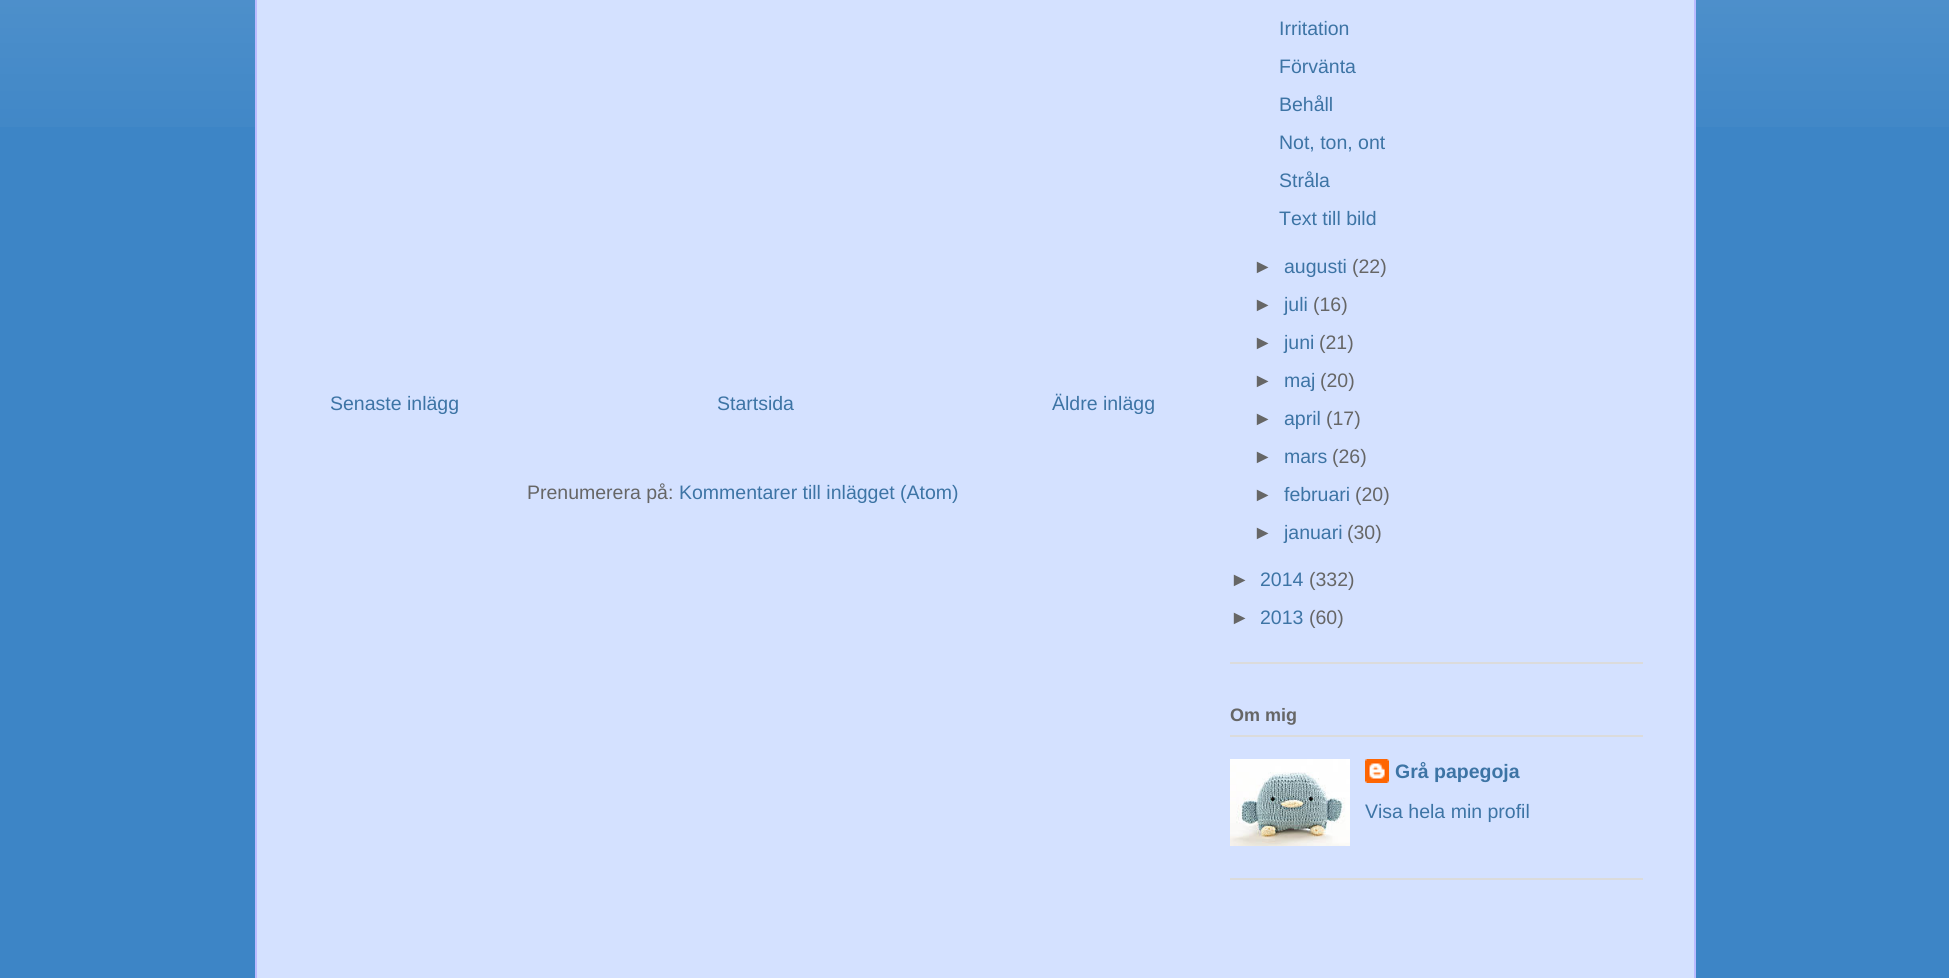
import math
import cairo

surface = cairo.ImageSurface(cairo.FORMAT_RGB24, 1949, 978)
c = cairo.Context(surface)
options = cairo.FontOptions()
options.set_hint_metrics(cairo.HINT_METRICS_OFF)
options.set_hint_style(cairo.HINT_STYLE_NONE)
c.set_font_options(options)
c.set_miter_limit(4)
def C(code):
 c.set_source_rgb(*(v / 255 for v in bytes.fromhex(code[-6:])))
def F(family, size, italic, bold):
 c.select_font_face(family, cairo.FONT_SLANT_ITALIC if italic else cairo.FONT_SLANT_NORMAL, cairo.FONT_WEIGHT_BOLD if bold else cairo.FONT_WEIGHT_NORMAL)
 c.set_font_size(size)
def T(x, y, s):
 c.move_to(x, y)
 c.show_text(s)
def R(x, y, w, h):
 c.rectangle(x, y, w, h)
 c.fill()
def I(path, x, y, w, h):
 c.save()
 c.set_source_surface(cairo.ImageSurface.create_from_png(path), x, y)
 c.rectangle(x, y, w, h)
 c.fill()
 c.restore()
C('3d85c6')
c.paint()
I('1.png',0,0,1949,127)
C('d4e1ff')
R(257,0,1437,978)
C('bbbbff')
R(1694,0,2,978)
R(255,0,2,978)
F('Liberation Sans',19.5,0,0)
C('3d74a5')
T(330,410,'Senaste inlägg')
T(717,410,'Startsida')
T(1052,410,'Äldre inlägg')
C('666666')
T(527,499,'Prenumerera på:')
C('3d74a5')
T(679,499,'Kommentarer till inlägget (Atom)')
C('dbdbdb')
R(1230,662,413,2)
C('3d74a5')
T(1279,35,'Irritation')
T(1279,73,'Förvänta')
T(1279,111,'Behåll')
T(1279,149,'Not, ton, ont')
T(1279,187,'Stråla')
T(1279,225,'Text till bild')
C('666666')
T(1253,273,'►')
C('3d74a5')
T(1284,273,'augusti')
C('666666')
T(1352,273,'(22)')
T(1253,311,'►')
C('3d74a5')
T(1284,311,'juli')
C('666666')
T(1313,311,'(16)')
T(1253,349,'►')
C('3d74a5')
T(1284,349,'juni')
C('666666')
T(1319,349,'(21)')
T(1253,387,'►')
C('3d74a5')
T(1284,387,'maj')
C('666666')
T(1320,387,'(20)')
T(1253,425,'►')
C('3d74a5')
T(1284,425,'april')
C('666666')
T(1326,425,'(17)')
T(1253,463,'►')
C('3d74a5')
T(1284,463,'mars')
C('666666')
T(1332,463,'(26)')
T(1253,501,'►')
C('3d74a5')
T(1284,501,'februari')
C('666666')
T(1355,501,'(20)')
T(1253,539,'►')
C('3d74a5')
T(1284,539,'januari')
C('666666')
T(1347,539,'(30)')
T(1230,586,'►')
C('3d74a5')
T(1260,586,'2014')
C('666666')
T(1309,586,'(332)')
T(1230,624,'►')
C('3d74a5')
T(1260,624,'2013')
C('666666')
T(1309,624,'(60)')
C('dbdbdb')
R(1230,878,413,2)
R(1230,735,413,2)
F('Liberation Sans',18,0,1)
C('666666')
T(1230,721,'Om mig')
I('2.png',1230,759,120,87)
I('3.png',1365,759,24,24)
F('Liberation Sans',19.5,0,1)
C('3d74a5')
T(1395,778,'Grå papegoja')
F('Liberation Sans',19.5,0,0)
T(1365,818,'Visa hela min profil')
surface.write_to_png('o.png')
